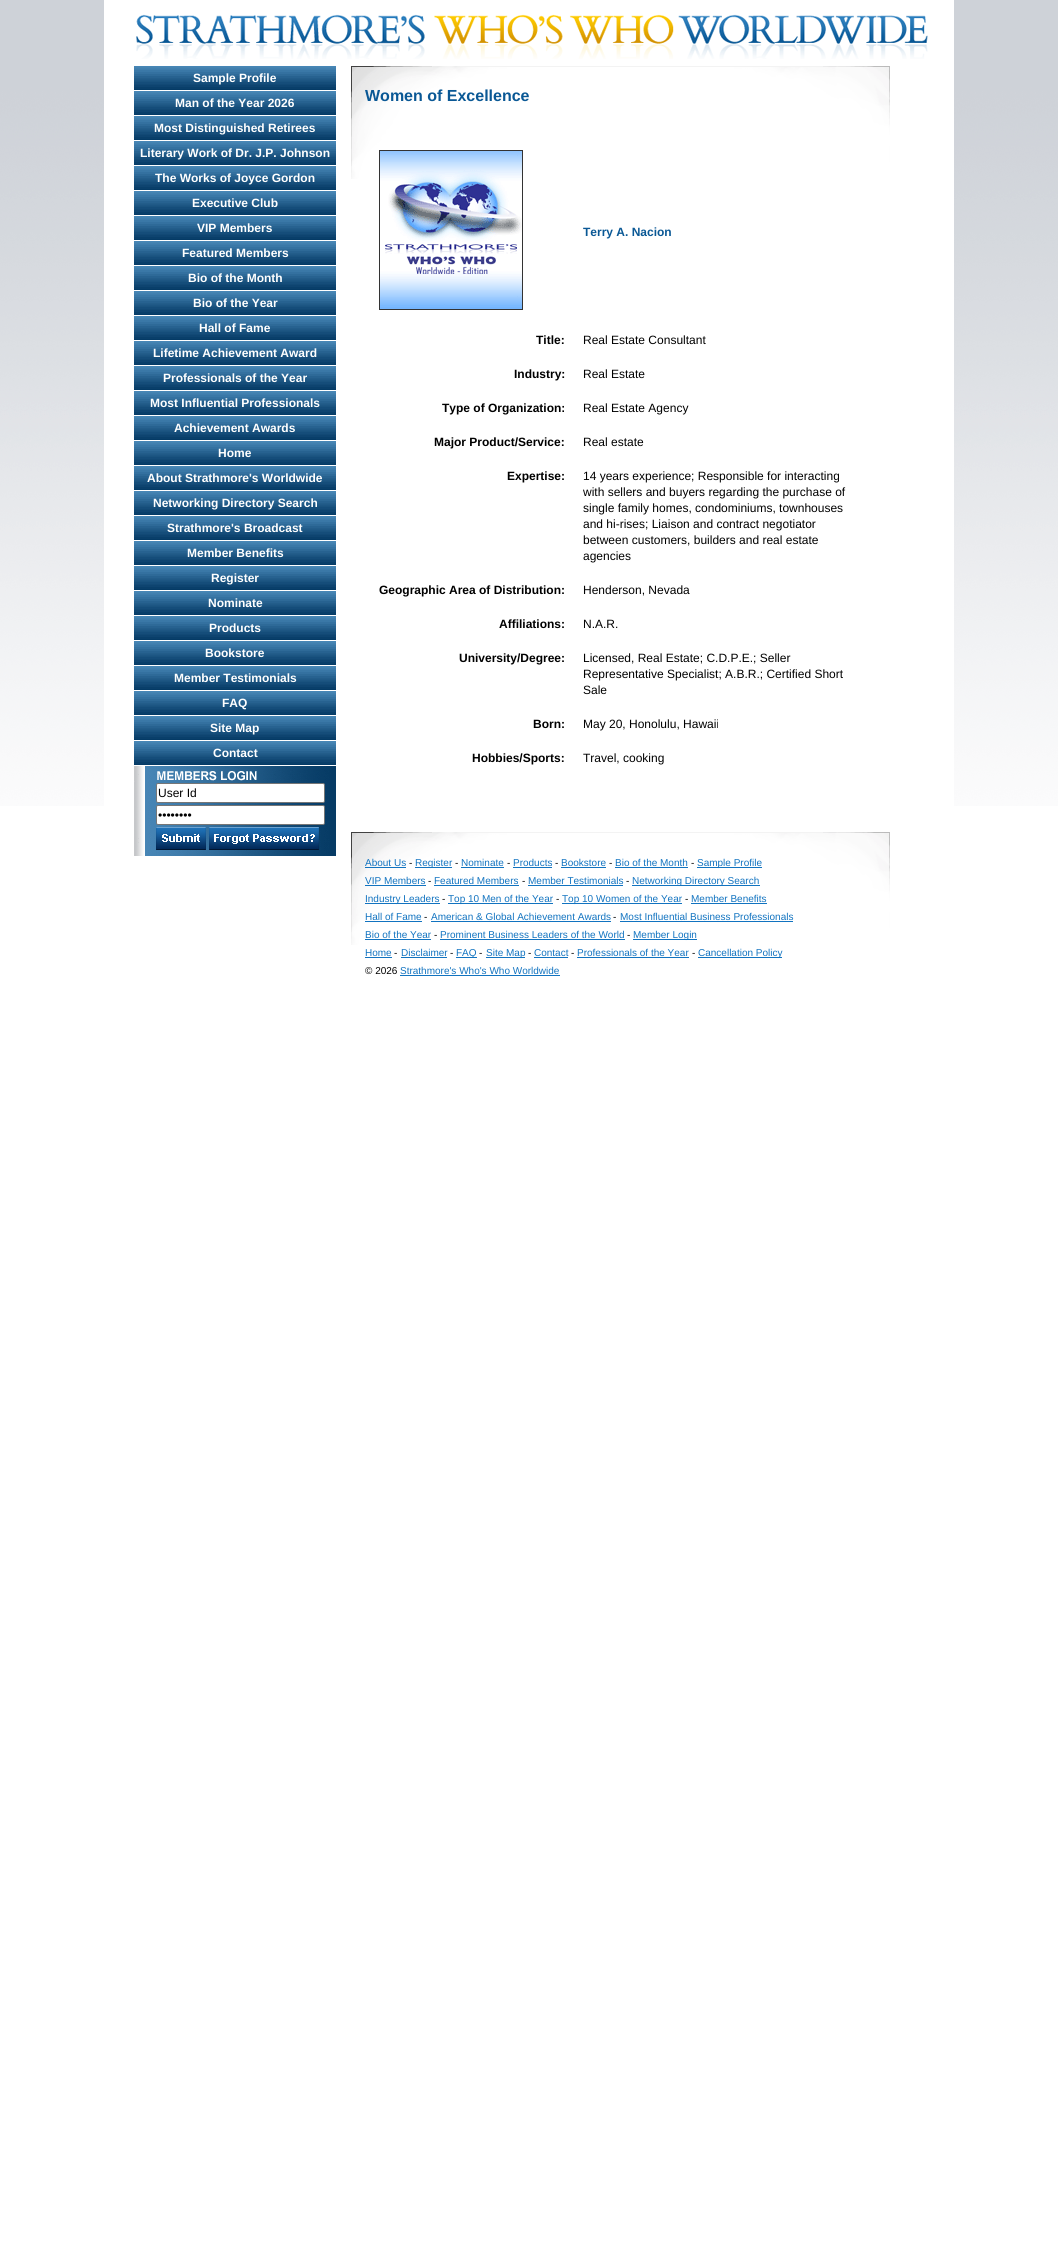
import math
import cairo

surface = cairo.ImageSurface(cairo.FORMAT_RGB24, 1058, 2243)
c = cairo.Context(surface)
options = cairo.FontOptions()
options.set_hint_metrics(cairo.HINT_METRICS_OFF)
options.set_hint_style(cairo.HINT_STYLE_NONE)
c.set_font_options(options)
c.set_miter_limit(4)
def C(code):
 c.set_source_rgb(*(v / 255 for v in bytes.fromhex(code[-6:])))
def F(family, size, italic, bold):
 c.select_font_face(family, cairo.FONT_SLANT_ITALIC if italic else cairo.FONT_SLANT_NORMAL, cairo.FONT_WEIGHT_BOLD if bold else cairo.FONT_WEIGHT_NORMAL)
 c.set_font_size(size)
def T(x, y, s):
 c.move_to(x, y)
 c.show_text(s)
def R(x, y, w, h):
 c.rectangle(x, y, w, h)
 c.fill()
def Q(x, y, w, h, r):
 c.new_sub_path()
 for i, (u, v) in enumerate([(x + w - r, y + h - r), (x + r, y + h - r), (x + r, y + r), (x + w - r, y + r)]):
  c.arc(u, v, r, i * math.pi / 2, (i + 1) * math.pi / 2)
 c.close_path()
def I(path, x, y, w, h):
 c.save()
 c.set_source_surface(cairo.ImageSurface.create_from_png(path), x, y)
 c.rectangle(x, y, w, h)
 c.fill()
 c.restore()
C('ffffff')
c.paint()
I('1.png',0,0,1058,806)
C('ffffff')
R(104,0,850,806)
I('2.png',136,14,792,45)
I('3.png',134,66,202,24)
F('Liberation Sans',12,0,1)
T(193,82,'Sample Profile')
I('3.png',134,91,202,24)
T(175,107,'Man of the Year 2026')
I('3.png',134,116,202,24)
T(154,132,'Most Distinguished Retirees')
I('3.png',134,141,202,24)
T(140,157,'Literary Work of Dr. J.P. Johnson')
I('3.png',134,166,202,24)
T(155,182,'The Works of Joyce Gordon')
I('3.png',134,191,202,24)
T(192,207,'Executive Club')
I('3.png',134,216,202,24)
T(197,232,'VIP Members')
I('3.png',134,241,202,24)
T(182,257,'Featured Members')
I('3.png',134,266,202,24)
T(188,282,'Bio of the Month')
I('3.png',134,291,202,24)
T(193,307,'Bio of the Year')
I('3.png',134,316,202,24)
T(199,332,'Hall of Fame')
I('3.png',134,341,202,24)
T(153,357,'Lifetime Achievement Award')
I('3.png',134,366,202,24)
T(163,382,'Professionals of the Year')
I('3.png',134,391,202,24)
T(150,407,'Most Influential Professionals')
I('3.png',134,416,202,24)
T(174,432,'Achievement Awards')
I('3.png',134,441,202,24)
T(218,457,'Home')
I('3.png',134,466,202,24)
T(147,482,'About Strathmore\'s Worldwide')
I('3.png',134,491,202,24)
T(153,507,'Networking Directory Search')
I('3.png',134,516,202,24)
T(167,532,'Strathmore\'s Broadcast')
I('3.png',134,541,202,24)
T(187,557,'Member Benefits')
I('3.png',134,566,202,24)
T(211,582,'Register')
I('3.png',134,591,202,24)
T(208,607,'Nominate')
I('3.png',134,616,202,24)
T(209,632,'Products')
I('3.png',134,641,202,24)
T(205,657,'Bookstore')
I('3.png',134,666,202,24)
T(174,682,'Member Testimonials')
I('3.png',134,691,202,24)
T(222,707,'FAQ')
I('3.png',134,716,202,24)
T(210,732,'Site Map')
I('3.png',134,741,202,24)
T(213,757,'Contact')
I('4.png',134,766,202,90)
Q(156.5,783.5,168,19,1.5)
c.fill_preserve()
C('767676')
c.set_line_width(1)
c.stroke()
F('Liberation Sans',12,0,0)
C('000000')
T(158,797,'User Id')
C('ffffff')
Q(156.5,805.5,168,19,1.5)
c.fill_preserve()
C('767676')
c.stroke()
C('000000')
T(158,819,'••••••••')
I('5.png',156,827,50,23)
I('6.png',209,827,110,23)
I('7.png',351,66,539,113)
F('Liberation Sans',16,0,1)
C('0a5895')
T(365,101,'Women of Excellence')
c.rectangle(379.5,150.5,143,159)
C('333333')
c.stroke()
I('8.png',380,151,142,158)
F('Liberation Sans',12,0,1)
C('0a5895')
T(583,236,'Terry A. Nacion')
C('000000')
T(536,344,'Title:')
F('Liberation Sans',12,0,0)
T(583,344,'Real Estate Consultant')
F('Liberation Sans',12,0,1)
T(514,378,'Industry:')
F('Liberation Sans',12,0,0)
T(583,378,'Real Estate')
F('Liberation Sans',12,0,1)
T(442,412,'Type of Organization:')
F('Liberation Sans',12,0,0)
T(583,412,'Real Estate Agency')
F('Liberation Sans',12,0,1)
T(434,446,'Major Product/Service:')
F('Liberation Sans',12,0,0)
T(583,446,'Real estate')
F('Liberation Sans',12,0,1)
T(507,480,'Expertise:')
F('Liberation Sans',12,0,0)
T(583,480,'14 years experience; Responsible for interacting')
T(583,496,'with sellers and buyers regarding the purchase of')
T(583,512,'single family homes, condominiums, townhouses')
T(583,528,'and hi-rises; Liaison and contract negotiator')
T(583,544,'between customers, builders and real estate')
T(583,560,'agencies')
F('Liberation Sans',12,0,1)
T(379,594,'Geographic Area of Distribution:')
F('Liberation Sans',12,0,0)
T(583,594,'Henderson, Nevada')
F('Liberation Sans',12,0,1)
T(499,628,'Affiliations:')
F('Liberation Sans',12,0,0)
T(583,628,'N.A.R.')
F('Liberation Sans',12,0,1)
T(459,662,'University/Degree:')
F('Liberation Sans',12,0,0)
T(583,662,'Licensed, Real Estate; C.D.P.E.; Seller')
T(583,678,'Representative Specialist; A.B.R.; Certified Short')
T(583,694,'Sale')
F('Liberation Sans',12,0,1)
T(533,728,'Born:')
F('Liberation Sans',12,0,0)
T(583,728,'May 20, Honolulu, Hawaii')
F('Liberation Sans',12,0,1)
T(472,762,'Hobbies/Sports:')
F('Liberation Sans',12,0,0)
T(583,762,'Travel, cooking')
I('7.png',351,832,539,113)
F('Liberation Sans',10,0,0)
C('1173c0')
T(365,866,'About Us')
R(365,867,41,1)
C('000000')
T(409,866,'-')
C('1173c0')
R(415,867,37,1)
T(415,866,'Register')
C('000000')
T(455,866,'-')
C('1173c0')
T(461,866,'Nominate')
R(461,867,43,1)
C('000000')
T(507,866,'-')
C('1173c0')
T(513,866,'Products')
R(513,867,39,1)
C('000000')
T(555,866,'-')
C('1173c0')
T(561,866,'Bookstore')
R(561,867,45,1)
C('000000')
T(609,866,'-')
C('1173c0')
T(615,866,'Bio of the Month')
R(615,867,73,1)
C('000000')
T(691,866,'-')
C('1173c0')
R(697,867,65,1)
T(697,866,'Sample Profile')
T(365,884,'VIP Members')
R(365,885,61,1)
C('000000')
T(428,884,'-')
C('1173c0')
T(434,884,'Featured Members')
R(434,885,85,1)
C('000000')
T(522,884,'-')
C('1173c0')
T(528,884,'Member Testimonials')
R(528,885,95,1)
C('000000')
T(626,884,'-')
C('1173c0')
R(632,885,128,1)
T(632,884,'Networking Directory Search')
R(365,903,75,1)
T(365,902,'Industry Leaders')
C('000000')
T(442,902,'-')
C('1173c0')
R(448,903,105,1)
T(448,902,'Top 10 Men of the Year')
C('000000')
T(556,902,'-')
C('1173c0')
R(562,903,120,1)
T(562,902,'Top 10 Women of the Year')
C('000000')
T(685,902,'-')
C('1173c0')
T(691,902,'Member Benefits')
R(691,903,76,1)
T(365,920,'Hall of Fame')
R(365,921,57,1)
C('000000')
T(424,920,'-')
C('1173c0')
T(431,920,'American & Global Achievement Awards')
R(431,921,180,1)
C('000000')
T(613,920,'-')
C('1173c0')
T(620,920,'Most Influential Business Professionals')
R(620,921,173,1)
T(365,938,'Bio of the Year')
R(365,939,66,1)
C('000000')
T(434,938,'-')
C('1173c0')
T(440,938,'Prominent Business Leaders of the World')
R(440,939,185,1)
C('000000')
T(627,938,'-')
C('1173c0')
R(633,939,64,1)
T(633,938,'Member Login')
T(365,956,'Home')
R(365,957,27,1)
C('000000')
T(394,956,'-')
C('1173c0')
T(401,956,'Disclaimer')
R(401,957,46,1)
C('000000')
T(450,956,'-')
C('1173c0')
R(456,957,21,1)
T(456,956,'FAQ')
C('000000')
T(479,956,'-')
C('1173c0')
R(486,957,39,1)
T(486,956,'Site Map')
C('000000')
T(528,956,'-')
C('1173c0')
T(534,956,'Contact')
R(534,957,34,1)
C('000000')
T(571,956,'-')
C('1173c0')
T(577,956,'Professionals of the Year')
R(577,957,112,1)
C('000000')
T(692,956,'-')
C('1173c0')
R(698,957,84,1)
T(698,956,'Cancellation Policy')
C('000000')
T(365,974,'© 2026')
C('1173c0')
T(400,974,'Strathmore\'s Who\'s Who Worldwide')
R(400,975,160,1)
surface.write_to_png('o.png')
